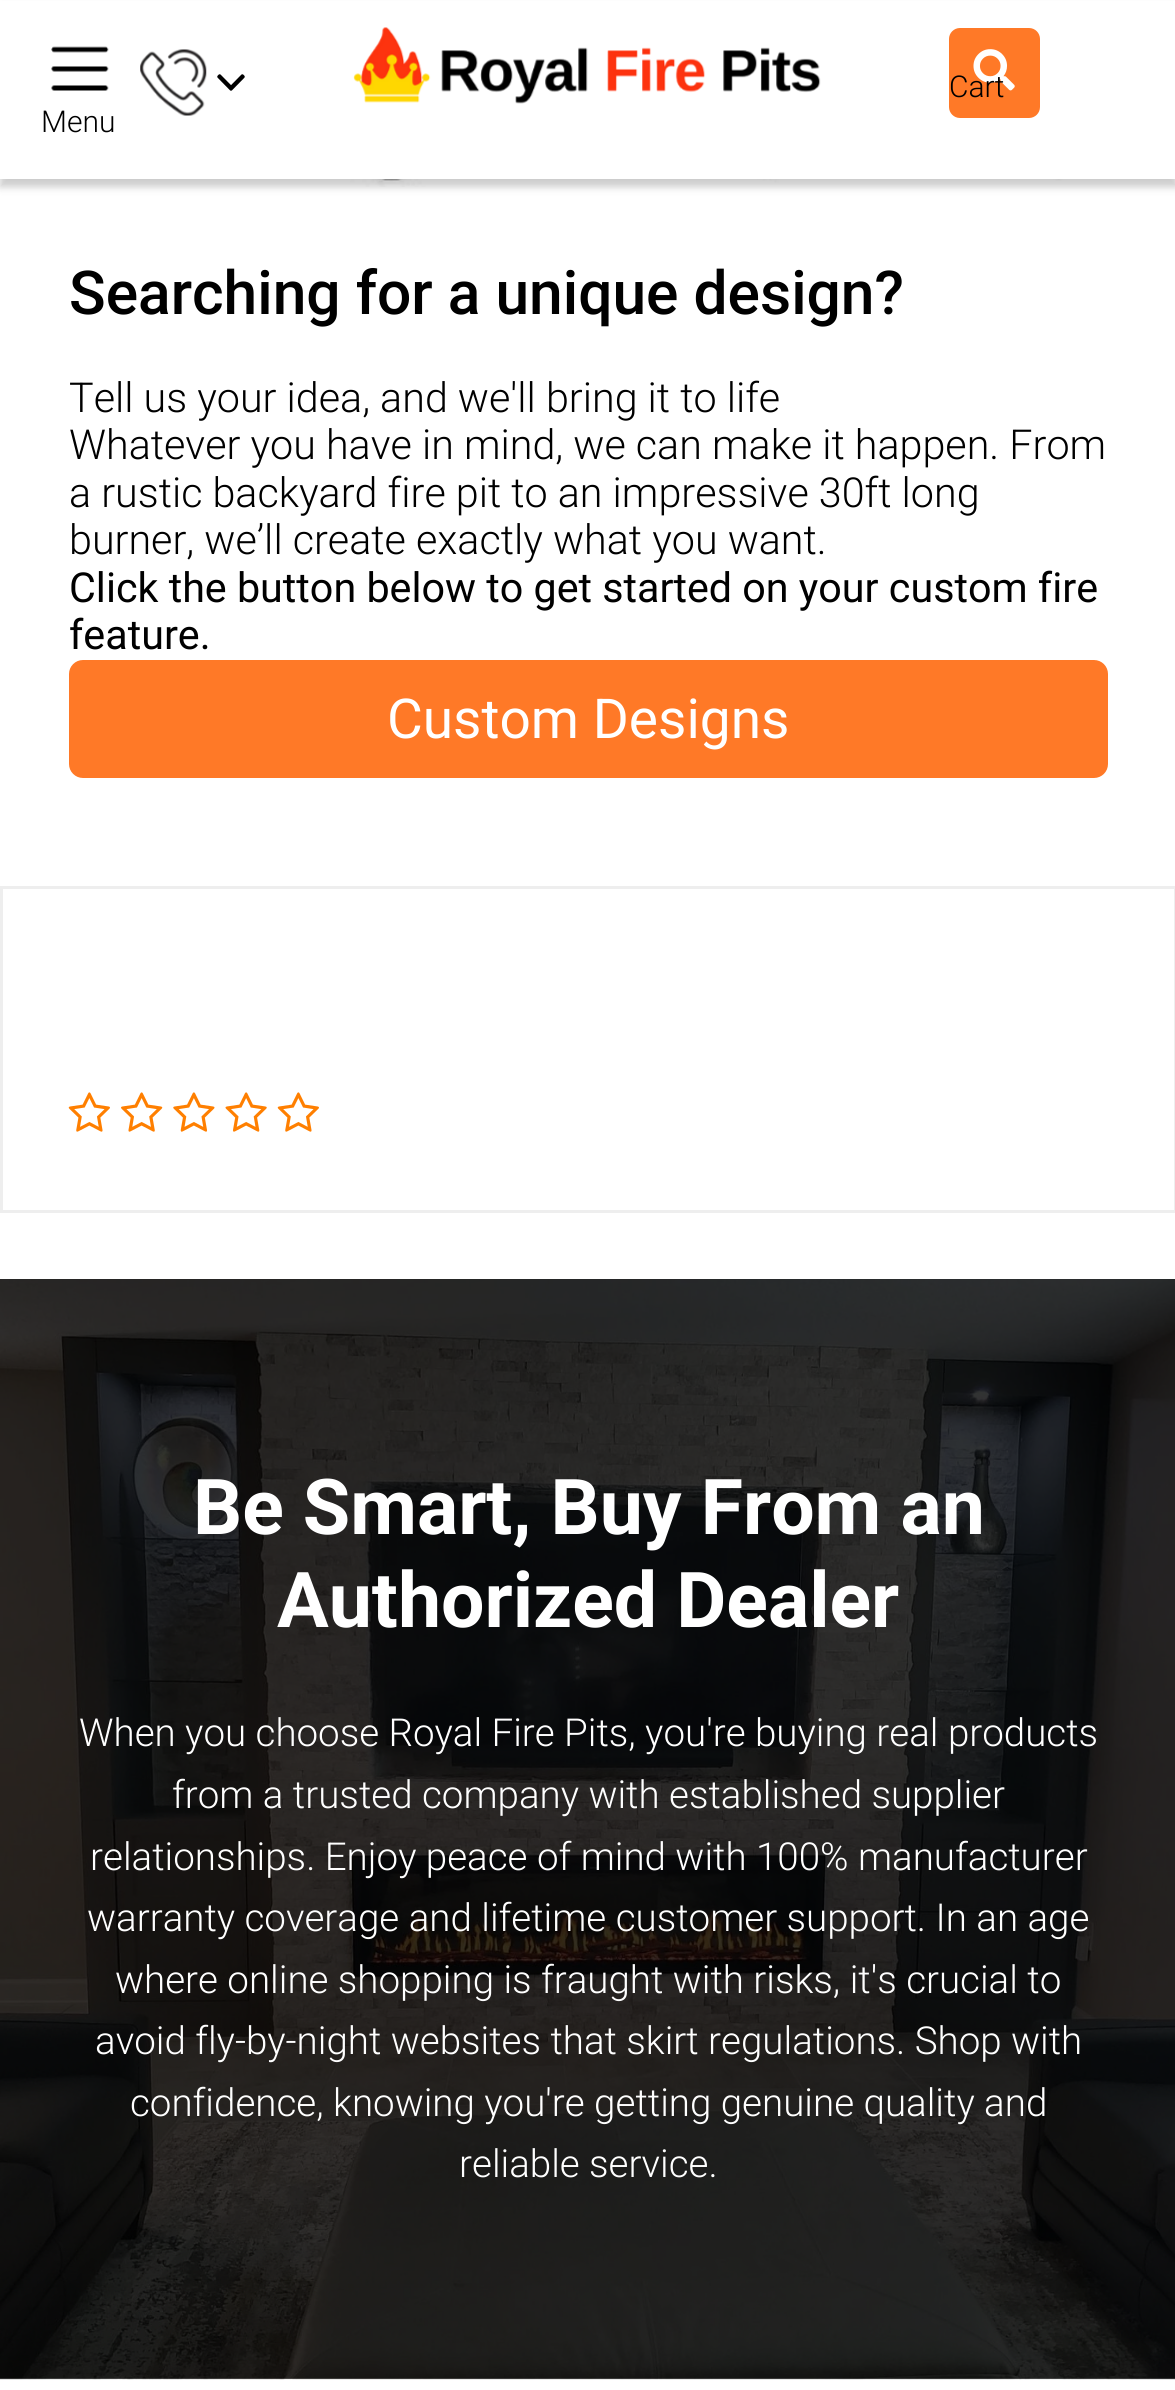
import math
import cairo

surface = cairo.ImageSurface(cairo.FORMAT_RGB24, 1175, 2390)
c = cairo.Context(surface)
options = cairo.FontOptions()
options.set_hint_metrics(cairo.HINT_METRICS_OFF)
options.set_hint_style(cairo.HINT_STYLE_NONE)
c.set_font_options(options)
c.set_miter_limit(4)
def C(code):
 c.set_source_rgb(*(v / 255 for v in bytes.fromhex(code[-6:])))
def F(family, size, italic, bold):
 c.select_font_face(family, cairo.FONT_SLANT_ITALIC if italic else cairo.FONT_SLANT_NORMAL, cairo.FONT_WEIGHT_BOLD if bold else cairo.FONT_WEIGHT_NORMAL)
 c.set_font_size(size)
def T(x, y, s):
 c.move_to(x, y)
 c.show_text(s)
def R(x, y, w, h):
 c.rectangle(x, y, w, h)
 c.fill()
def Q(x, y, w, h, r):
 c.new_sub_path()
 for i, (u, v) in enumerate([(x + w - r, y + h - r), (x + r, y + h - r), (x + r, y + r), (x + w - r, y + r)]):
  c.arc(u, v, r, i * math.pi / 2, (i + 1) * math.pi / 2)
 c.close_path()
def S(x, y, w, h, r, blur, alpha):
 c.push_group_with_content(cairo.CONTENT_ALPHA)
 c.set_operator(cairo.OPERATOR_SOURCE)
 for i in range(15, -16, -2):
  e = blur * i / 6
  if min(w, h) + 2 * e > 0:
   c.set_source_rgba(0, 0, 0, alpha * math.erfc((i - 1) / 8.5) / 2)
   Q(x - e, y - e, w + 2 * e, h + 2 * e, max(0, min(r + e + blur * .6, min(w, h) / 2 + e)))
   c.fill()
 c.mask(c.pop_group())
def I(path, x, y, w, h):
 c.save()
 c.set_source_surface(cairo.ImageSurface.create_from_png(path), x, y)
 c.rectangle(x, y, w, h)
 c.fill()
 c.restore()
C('ffffff')
c.paint()
I('6.png',86,179,980,8)
C('000000')
S(0,8,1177,179,0,4,.2)
C('ffffff')
R(0,1,1175,178)
I('1.png',353,27,468,77)
C('ff7927')
Q(949,28,91,90,11)
c.fill()
I('2.png',973,49,42,42)
F('Roboto Light',30,0,0)
C('000000')
T(949,97,'Cart')
I('3.png',140,49,67,67)
I('4.png',217,74,28,17)
I('5.png',51,46,58,45)
T(41,132,'Menu')
F('Roboto Medium',60.5,0,0)
T(69,314,'Searching for a unique design?')
F('Roboto Light',41.25,0,0)
T(69,412,'Tell us your idea, and we\'ll bring it to life')
T(69,459,'Whatever you have in mind, we can make it happen. From')
T(69,507,'a rustic backyard fire pit to an impressive 30ft long')
T(69,554,'burner, we’ll create exactly what you want.')
F('Roboto',41.25,0,0)
T(69,602,'Click the button below to get started on your custom fire')
T(69,649,'feature.')
C('ff7927')
Q(69,660,1039,118,14)
c.fill()
F('Roboto',55,0,0)
C('ffffff')
T(387,738,'Custom Designs')
c.rectangle(1.5,887.5,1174,324)
C('eeeeee')
c.set_line_width(3)
c.stroke()
I('7.png',68,1092,42,40)
I('8.png',121,1092,42,40)
I('9.png',173,1092,42,40)
I('10.png',225,1092,42,40)
I('7.png',277,1092,42,40)
I('11.png',0,1279,1175,1101)
F('Roboto',77,0,1)
C('ffffff')
T(193,1534,'Be Smart, Buy From an')
T(277,1627,'Authorized Dealer')
F('Roboto Light',38.5,0,0)
T(79,1746,'When you choose Royal Fire Pits, you\'re buying real products')
T(172,1808,'from a trusted company with established supplier')
T(90,1870,'relationships. Enjoy peace of mind with 100% manufacturer')
T(87,1931,'warranty coverage and lifetime customer support. In an age')
T(115,1993,'where online shopping is fraught with risks, it\'s crucial to')
T(95,2054,'avoid fly-by-night websites that skirt regulations. Shop with')
T(130,2116,'confidence, knowing you\'re getting genuine quality and')
T(459,2177,'reliable service.')
surface.write_to_png('o.png')
